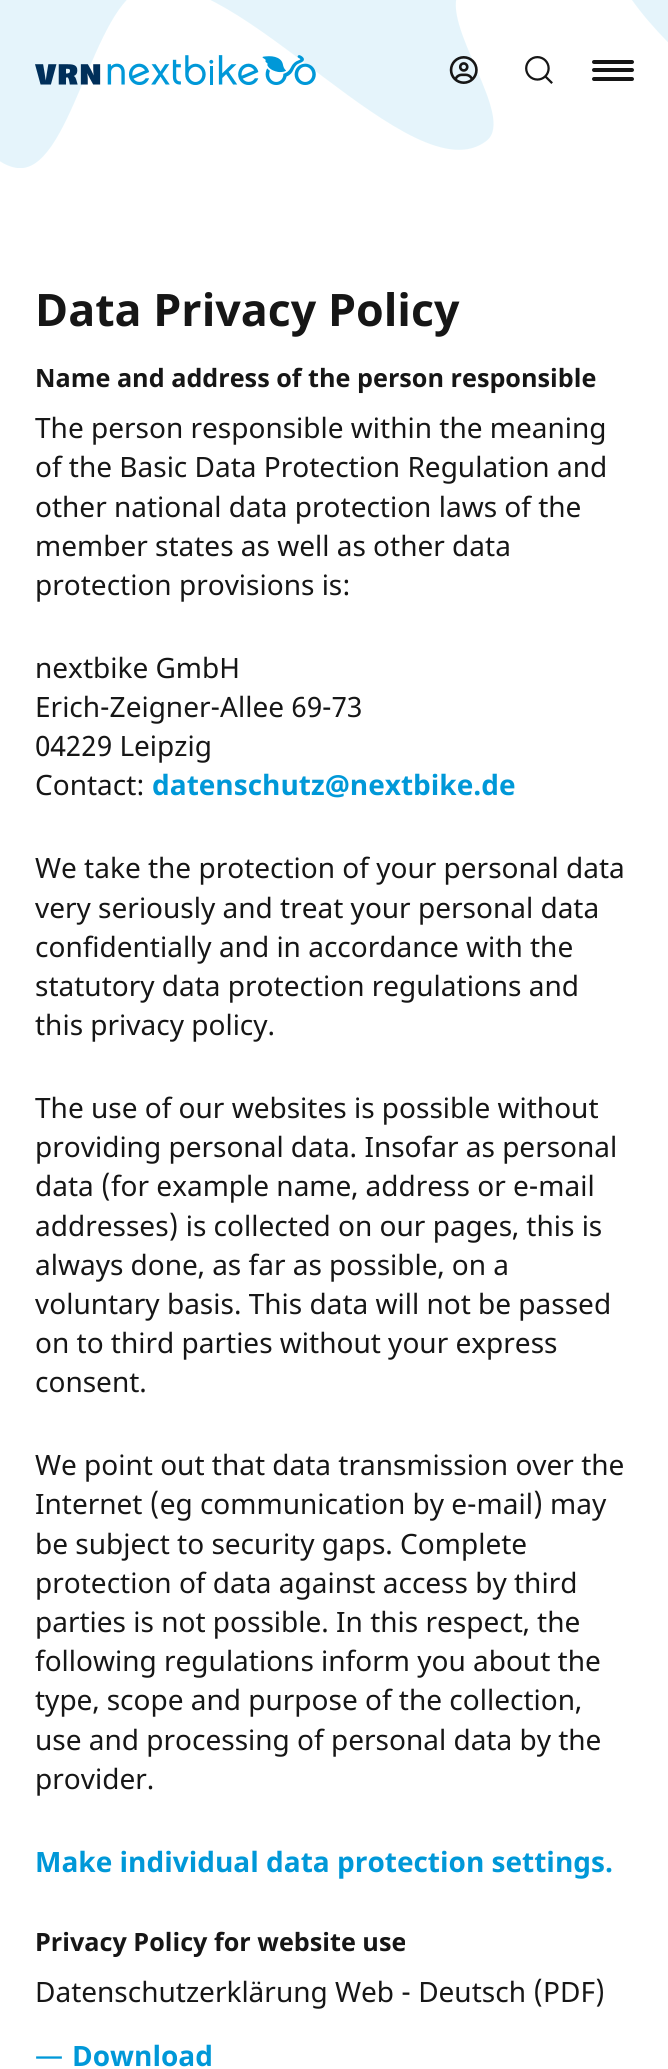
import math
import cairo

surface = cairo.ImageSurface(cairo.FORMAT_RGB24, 668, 2069)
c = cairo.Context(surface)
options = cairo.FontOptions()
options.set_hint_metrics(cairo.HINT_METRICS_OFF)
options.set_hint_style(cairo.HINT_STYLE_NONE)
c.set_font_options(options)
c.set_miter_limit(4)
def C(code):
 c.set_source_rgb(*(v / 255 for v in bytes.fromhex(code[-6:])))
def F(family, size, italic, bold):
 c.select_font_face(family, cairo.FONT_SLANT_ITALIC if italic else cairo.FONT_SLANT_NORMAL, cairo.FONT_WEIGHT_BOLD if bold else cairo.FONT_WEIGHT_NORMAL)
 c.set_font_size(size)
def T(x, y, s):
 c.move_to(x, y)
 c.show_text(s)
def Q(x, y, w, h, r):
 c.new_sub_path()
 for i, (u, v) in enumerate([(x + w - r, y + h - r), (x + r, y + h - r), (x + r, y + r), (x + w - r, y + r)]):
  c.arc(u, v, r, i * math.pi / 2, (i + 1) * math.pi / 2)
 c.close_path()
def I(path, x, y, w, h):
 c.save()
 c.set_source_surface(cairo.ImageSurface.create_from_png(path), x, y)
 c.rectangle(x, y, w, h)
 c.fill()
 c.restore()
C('ffffff')
c.paint()
I('1.png',0,0,668,168)
I('2.png',35,55,281,30)
I('3.png',449,56,29,28)
I('4.png',525,56,28,28)
C('161616')
Q(592,60,42,4,2)
c.fill()
Q(592,68,42,4,2)
c.fill()
Q(592,77,42,4,2)
c.fill()
F('Noto Sans',44.75,0,1)
T(35,326,'Data Privacy Policy')
F('Noto Sans',25.2,0,1)
T(35,387,'Name and address of the person responsible')
F('Noto Sans',28,0,0)
T(35,438,'The person responsible within the meaning')
T(35,477,'of the Basic Data Protection Regulation and')
T(35,517,'other national data protection laws of the')
T(35,556,'member states as well as other data')
T(35,595,'protection provisions is:')
T(35,678,'nextbike GmbH')
T(35,717,'Erich-Zeigner-Allee 69-73')
T(35,756,'04229 Leipzig')
T(35,795,'Contact:')
F('Noto Sans',28,0,1)
C('0098d8')
T(152,795,'datenschutz@nextbike.de')
F('Noto Sans',28,0,0)
C('161616')
T(35,878,'We take the protection of your personal data')
T(35,918,'very seriously and treat your personal data')
T(35,957,'confidentially and in accordance with the')
T(35,996,'statutory data protection regulations and')
T(35,1035,'this privacy policy.')
T(35,1118,'The use of our websites is possible without')
T(35,1157,'providing personal data. Insofar as personal')
T(35,1196,'data (for example name, address or e-mail')
T(35,1236,'addresses) is collected on our pages, this is')
T(35,1275,'always done, as far as possible, on a')
T(35,1314,'voluntary basis. This data will not be passed')
T(35,1353,'on to third parties without your express')
T(35,1392,'consent.')
T(35,1475,'We point out that data transmission over the')
T(35,1514,'Internet (eg communication by e-mail) may')
T(35,1554,'be subject to security gaps. Complete')
T(35,1593,'protection of data against access by third')
T(35,1632,'parties is not possible. In this respect, the')
T(35,1671,'following regulations inform you about the')
T(35,1710,'type, scope and purpose of the collection,')
T(35,1750,'use and processing of personal data by the')
T(35,1789,'provider.')
F('Noto Sans',28,0,1)
C('0098d8')
T(35,1872,'Make individual data protection settings.')
F('Noto Sans',25.2,0,1)
C('161616')
T(35,1951,'Privacy Policy for website use')
F('Noto Sans',28,0,0)
T(35,2002,'Datenschutzerklärung Web - Deutsch (PDF)')
C('0098d8')
T(35,2066,'—')
F('Noto Sans',28,0,1)
T(72,2066,'Download')
surface.write_to_png('o.png')
